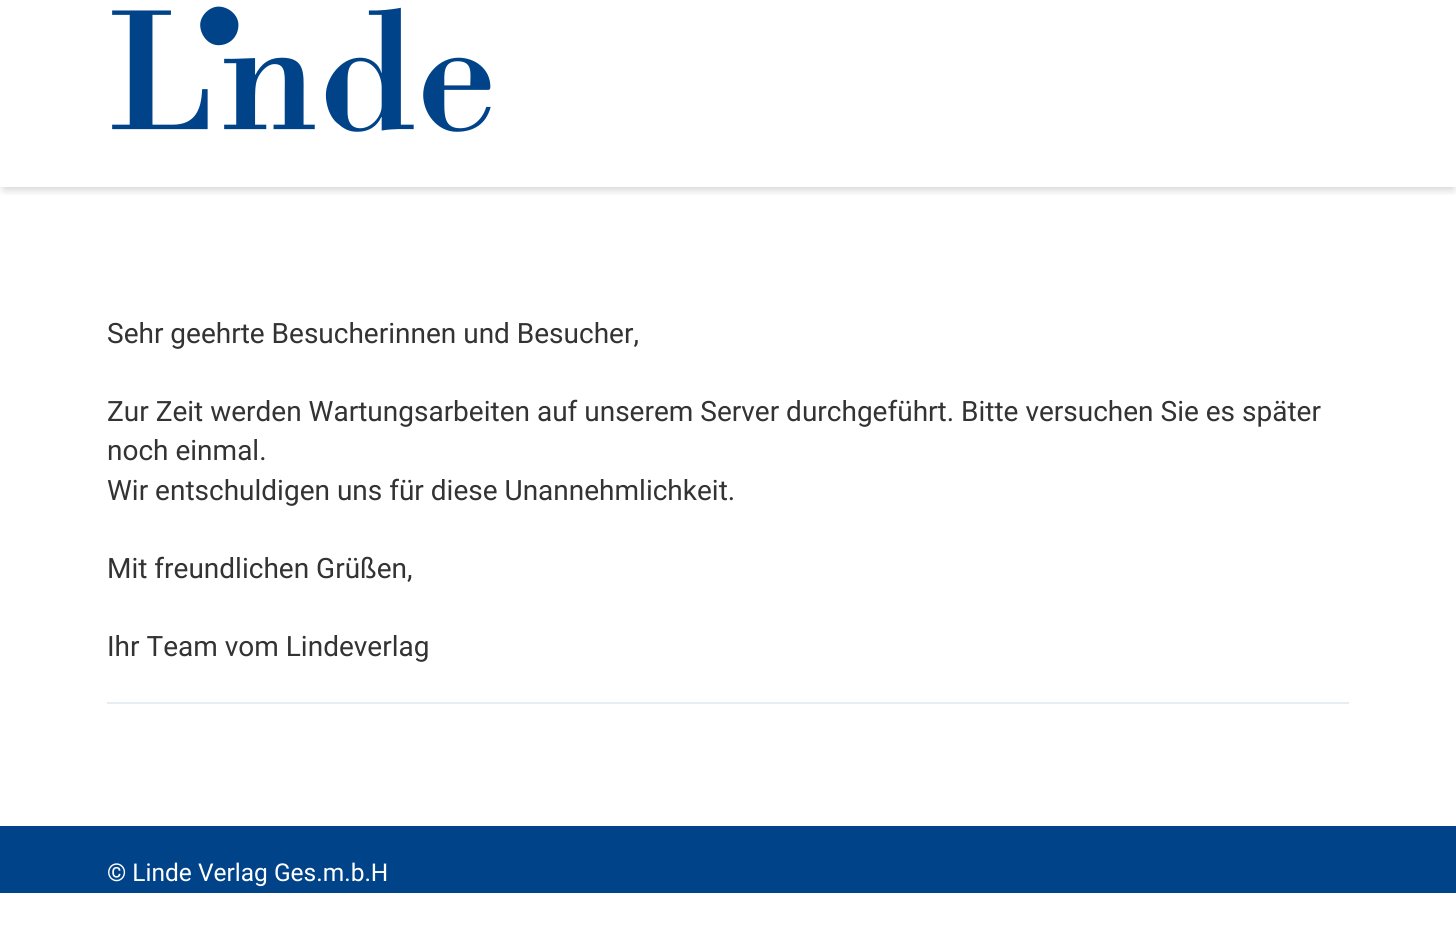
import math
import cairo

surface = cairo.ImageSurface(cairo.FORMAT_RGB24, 1456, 939)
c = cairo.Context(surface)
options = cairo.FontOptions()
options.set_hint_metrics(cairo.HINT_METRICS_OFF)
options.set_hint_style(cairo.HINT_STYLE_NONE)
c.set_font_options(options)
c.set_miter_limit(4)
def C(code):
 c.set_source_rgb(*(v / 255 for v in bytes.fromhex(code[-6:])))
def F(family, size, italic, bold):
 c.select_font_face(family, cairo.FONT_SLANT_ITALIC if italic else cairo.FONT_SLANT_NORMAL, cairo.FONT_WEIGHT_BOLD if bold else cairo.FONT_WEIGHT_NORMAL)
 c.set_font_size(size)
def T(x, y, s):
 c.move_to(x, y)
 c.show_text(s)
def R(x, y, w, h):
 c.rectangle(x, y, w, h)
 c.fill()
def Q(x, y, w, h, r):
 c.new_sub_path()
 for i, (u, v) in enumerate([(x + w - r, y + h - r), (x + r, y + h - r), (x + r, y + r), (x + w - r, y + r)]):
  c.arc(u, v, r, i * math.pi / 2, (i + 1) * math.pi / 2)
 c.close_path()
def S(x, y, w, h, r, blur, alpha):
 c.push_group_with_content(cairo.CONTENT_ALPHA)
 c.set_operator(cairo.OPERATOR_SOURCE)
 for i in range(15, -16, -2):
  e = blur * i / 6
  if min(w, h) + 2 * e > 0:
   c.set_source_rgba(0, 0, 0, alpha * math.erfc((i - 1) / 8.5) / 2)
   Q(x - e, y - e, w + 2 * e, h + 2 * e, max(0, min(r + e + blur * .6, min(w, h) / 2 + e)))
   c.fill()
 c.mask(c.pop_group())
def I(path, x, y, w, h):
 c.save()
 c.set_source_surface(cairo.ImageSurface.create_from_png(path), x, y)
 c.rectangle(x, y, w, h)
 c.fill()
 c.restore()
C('ffffff')
c.paint()
c.save()
c.rectangle(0,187,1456,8)
c.clip()
C('000000')
S(4,9,1449,180,0,5,.2)
c.restore()
I('1.png',112,6,379,126)
F('Roboto',28,0,0)
C('333333')
T(107,343,'Sehr geehrte Besucherinnen und Besucher,')
T(107,421,'Zur Zeit werden Wartungsarbeiten auf unserem Server durchgeführt. Bitte versuchen Sie es später')
T(107,460,'noch einmal.')
T(107,500,'Wir entschuldigen uns für diese Unannehmlichkeit.')
T(107,578,'Mit freundlichen Grüßen,')
T(107,656,'Ihr Team vom Lindeverlag')
C('e8edf1')
R(107,702,1242,2)
C('004389')
R(0,826,1456,67)
F('Roboto',24.5,0,0)
C('ffffff')
T(107,881,'© Linde Verlag Ges.m.b.H')
surface.write_to_png('o.png')
